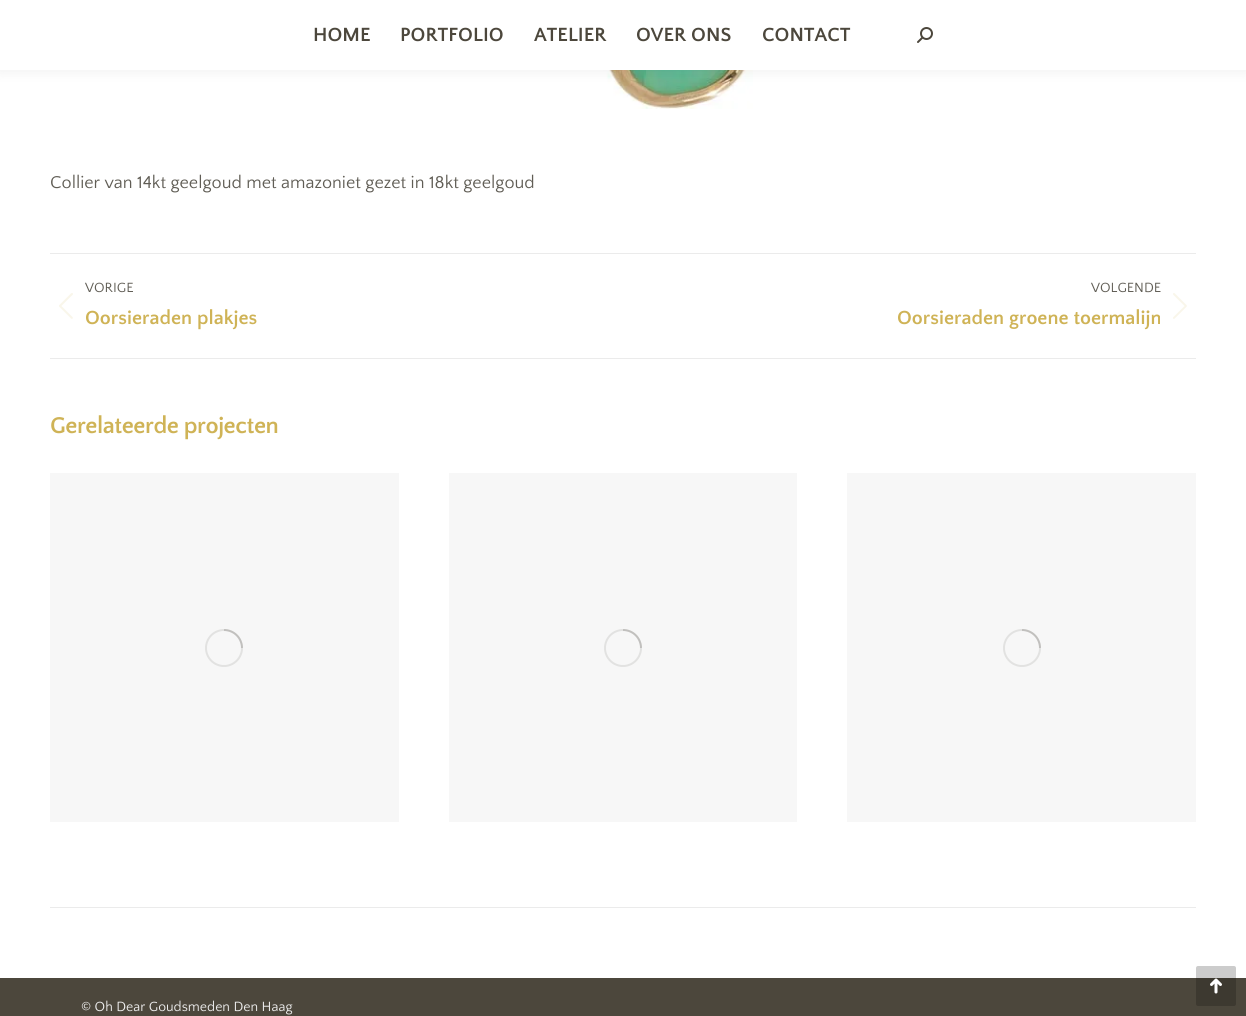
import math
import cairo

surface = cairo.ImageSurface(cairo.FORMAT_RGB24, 1246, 1016)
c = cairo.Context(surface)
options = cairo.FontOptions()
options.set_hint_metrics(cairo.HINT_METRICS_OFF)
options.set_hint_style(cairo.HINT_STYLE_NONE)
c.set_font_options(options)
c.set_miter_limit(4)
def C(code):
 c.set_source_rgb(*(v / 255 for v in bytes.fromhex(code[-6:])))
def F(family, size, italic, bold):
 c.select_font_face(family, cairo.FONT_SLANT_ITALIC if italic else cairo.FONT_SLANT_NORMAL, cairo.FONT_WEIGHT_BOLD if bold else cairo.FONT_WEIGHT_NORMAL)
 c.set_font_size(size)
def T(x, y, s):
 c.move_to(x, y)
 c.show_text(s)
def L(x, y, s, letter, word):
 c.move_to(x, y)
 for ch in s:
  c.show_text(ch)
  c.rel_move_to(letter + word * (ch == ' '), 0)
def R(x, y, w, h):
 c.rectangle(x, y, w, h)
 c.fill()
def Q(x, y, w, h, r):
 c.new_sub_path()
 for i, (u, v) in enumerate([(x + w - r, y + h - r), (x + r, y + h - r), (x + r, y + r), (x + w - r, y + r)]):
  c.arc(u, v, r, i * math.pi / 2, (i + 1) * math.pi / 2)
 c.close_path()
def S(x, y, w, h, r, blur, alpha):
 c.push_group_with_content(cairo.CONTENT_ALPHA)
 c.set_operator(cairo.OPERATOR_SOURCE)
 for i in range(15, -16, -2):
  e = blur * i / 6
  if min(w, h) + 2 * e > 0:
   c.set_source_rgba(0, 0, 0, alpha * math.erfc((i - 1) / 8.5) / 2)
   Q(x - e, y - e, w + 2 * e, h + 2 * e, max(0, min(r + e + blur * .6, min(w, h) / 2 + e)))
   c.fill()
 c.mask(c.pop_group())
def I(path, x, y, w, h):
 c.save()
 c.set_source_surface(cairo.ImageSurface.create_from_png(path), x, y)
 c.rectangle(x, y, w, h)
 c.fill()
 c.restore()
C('ffffff')
c.paint()
I('2.png',600,70,153,39)
C('000000')
S(-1,-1,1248,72,0,7.5,.07)
C('ffffff')
R(0,0,1246,70)
F('Quattrocento Sans',20,0,1)
C('4c473c')
T(313,41,'HOME')
T(400,41,'PORTFOLIO')
T(534,41,'ATELIER')
T(636,41,'OVER ONS')
T(762,41,'CONTACT')
I('1.png',917,27,16,16)
F('Quattrocento Sans',18,0,0)
C('605d55')
T(50,188,'Collier van 14kt geelgoud met amazoniet gezet in 18kt geelgoud')
C('ebebeb')
R(50,253,1146,1)
R(50,358,1146,1)
F('Quattrocento Sans',14,0,0)
C('605d55')
T(85,292,'VORIGE')
I('3.png',59,293,14,26)
F('Quattrocento Sans',20,0,1)
C('cfb356')
T(85,324,'Oorsieraden plakjes')
F('Quattrocento Sans',14,0,0)
C('605d55')
T(1091,292,'VOLGENDE')
F('Quattrocento Sans',20,0,1)
C('cfb356')
T(897,324,'Oorsieraden groene toermalijn')
I('4.png',1173,293,14,26)
C('ebebeb')
R(50,907,1146,1)
F('Quattrocento Sans',24,0,1)
C('cfb356')
L(50,433,'Gerelateerde projecten',-.5,0)
C('f7f7f7')
R(50,473,349,349)
c.new_path()
c.arc(224,648,18,0,2 * math.pi)
C('e2e2e1')
c.stroke()
c.new_path()
c.move_to(242,648)
c.curve_to(242,638,234,630,224,630)
c.set_source_rgba(0.376,0.365,0.333,0.25)
c.stroke()
C('f7f7f7')
R(449,473,348,349)
c.arc(623,648,18,0,2 * math.pi)
C('e2e2e1')
c.stroke()
c.new_path()
c.move_to(641,648)
c.curve_to(641,638,633,630,623,630)
c.set_source_rgba(0.376,0.365,0.333,0.25)
c.stroke()
C('f7f7f7')
R(847,473,349,349)
c.arc(1022,648,18,0,2 * math.pi)
C('e2e2e1')
c.stroke()
c.new_path()
c.move_to(1040,648)
c.curve_to(1040,638,1032,630,1022,630)
c.set_source_rgba(0.376,0.365,0.333,0.25)
c.stroke()
C('4c473c')
R(0,978,1246,38)
c.set_source_rgba(0,0,0,0.2)
Q(1196,966,40,40,2)
c.fill()
I('5.png',1210,978,12,16)
F('Quattrocento Sans',14,0,0)
C('eeeeee')
T(81,1011,'© Oh Dear Goudsmeden Den Haag')
surface.write_to_png('o.png')
